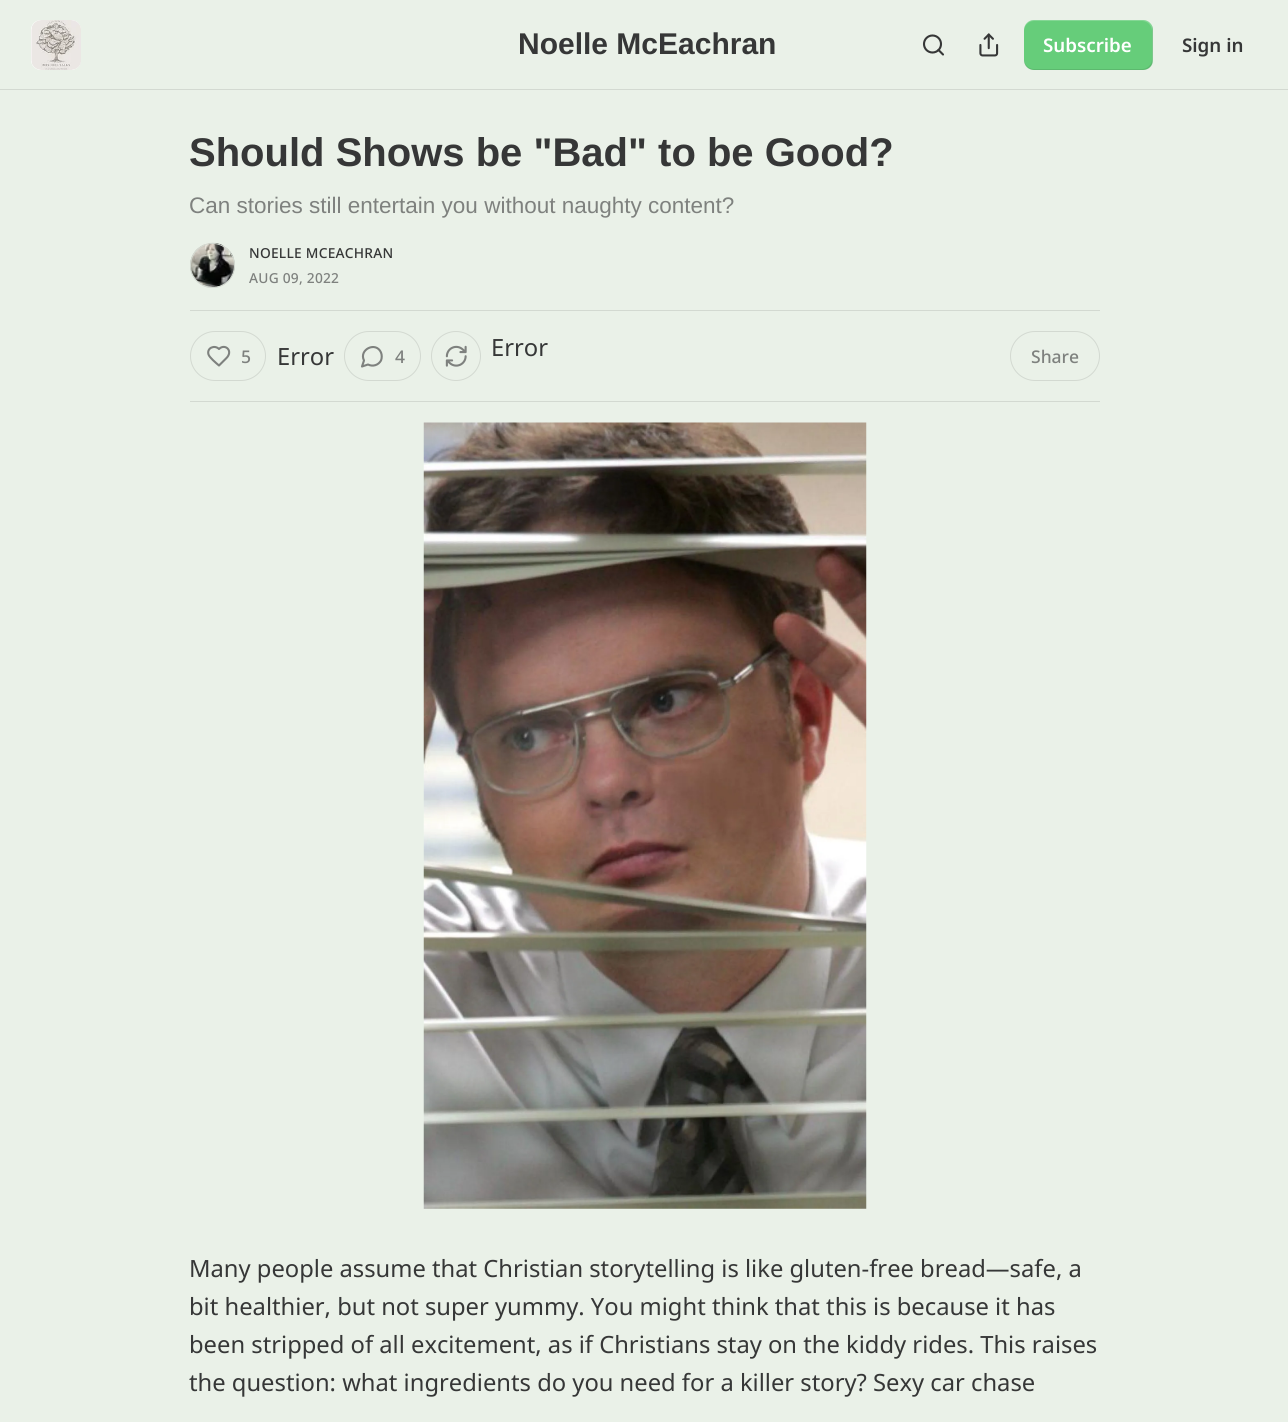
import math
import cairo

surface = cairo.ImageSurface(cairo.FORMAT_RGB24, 1288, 1422)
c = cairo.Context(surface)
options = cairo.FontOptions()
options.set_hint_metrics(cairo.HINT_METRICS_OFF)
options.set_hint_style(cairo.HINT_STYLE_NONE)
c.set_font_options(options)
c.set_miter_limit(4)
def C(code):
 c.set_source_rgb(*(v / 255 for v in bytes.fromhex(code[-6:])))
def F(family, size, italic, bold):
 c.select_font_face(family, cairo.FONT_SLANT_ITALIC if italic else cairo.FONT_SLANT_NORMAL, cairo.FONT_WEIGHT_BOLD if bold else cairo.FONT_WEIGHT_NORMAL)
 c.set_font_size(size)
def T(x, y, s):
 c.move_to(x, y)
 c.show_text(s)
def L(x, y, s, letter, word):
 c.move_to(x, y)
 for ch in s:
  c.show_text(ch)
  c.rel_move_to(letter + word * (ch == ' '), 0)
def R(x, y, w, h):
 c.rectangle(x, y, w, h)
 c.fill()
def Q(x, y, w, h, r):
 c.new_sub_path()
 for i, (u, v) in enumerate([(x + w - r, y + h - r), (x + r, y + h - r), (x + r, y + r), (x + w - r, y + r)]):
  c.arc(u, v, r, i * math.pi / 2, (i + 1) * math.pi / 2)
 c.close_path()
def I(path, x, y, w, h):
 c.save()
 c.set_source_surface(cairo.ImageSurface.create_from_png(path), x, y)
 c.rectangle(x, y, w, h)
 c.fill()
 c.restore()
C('eaf1e8')
c.paint()
C('d3d9d1')
R(0,89,1288,1)
C('ffffff')
Q(31,20,50,50,10)
c.fill()
I('1.png',31,20,50,50)
F('Liberation Sans',30,0,1)
C('363737')
T(518,54,'Noelle McEachran')
c.new_path()
c.arc(932.5,44,8.5,0,2 * math.pi)
c.set_line_width(2.1)
c.stroke()
c.new_path()
c.move_to(943,54.5)
c.line_to(938.5,50)
c.set_line_cap(cairo.LINE_CAP_ROUND)
c.set_line_join(cairo.LINE_JOIN_ROUND)
c.stroke()
I('2.png',979,33,20,24)
C('66cd7a')
Q(1024,20,129,50,10)
c.fill()
c.set_source_rgba(0,0,0,0.1)
c.new_path()
c.move_to(1024,59)
c.line_to(1024,60)
c.curve_to(1024,66,1028,70,1034,70)
c.line_to(1143,70)
c.curve_to(1149,70,1153,66,1153,60)
c.line_to(1153,30)
c.curve_to(1153,28,1152,25,1151,24)
c.curve_to(1152,25,1152,27,1152,29)
c.line_to(1152,59)
c.curve_to(1152,64,1148,69,1142,69)
c.line_to(1034,69)
c.curve_to(1028,69,1024,64,1024,59)
c.close_path()
c.fill()
c.set_source_rgba(1,1,1,0.2)
c.new_path()
c.move_to(1034,21)
c.line_to(1142,21)
c.curve_to(1148,21,1152,26,1152,31)
c.line_to(1152,61)
c.curve_to(1152,63,1152,65,1151,66)
c.curve_to(1152,65,1153,62,1153,60)
c.line_to(1153,30)
c.curve_to(1153,24,1149,20,1143,20)
c.line_to(1034,20)
c.curve_to(1028,20,1024,24,1024,30)
c.line_to(1024,31)
c.curve_to(1024,26,1028,21,1034,21)
c.close_path()
c.fill()
F('Noto Sans SemiBold',18.75,0,0)
C('ffffff')
T(1043,52,'Subscribe')
C('363737')
T(1182,52,'Sign in')
F('Liberation Sans',40,0,1)
T(189,166,'Should Shows be "Bad" to be Good?')
F('Liberation Sans',22.5,0,0)
C('7e817e')
T(189,213,'Can stories still entertain you without naughty content?')
c.new_path()
c.arc(212.5,265.5,22,0,2 * math.pi)
C('d3d9d1')
c.set_line_width(1)
c.set_line_cap(cairo.LINE_CAP_BUTT)
c.set_line_join(cairo.LINE_JOIN_MITER)
c.stroke()
I('3.png',190,242,45,46)
c.arc(212.5,265.5,22,0,2 * math.pi)
c.stroke()
F('Noto Sans Medium',13.75,0,0)
C('363737')
L(249,258,'NOELLE MCEACHRAN',.25,0)
C('7e817e')
L(249,283,'AUG 09, 2022',.25,0)
C('d3d9d1')
R(190,310,910,1)
R(190,401,910,1)
Q(190.5,331.5,75,49,24.5)
c.stroke()
c.new_path()
c.move_to(226,358.5)
c.curve_to(234,351,225,343,219,349)
c.curve_to(214.5,344.5,206.5,348,208.5,354.5)
c.curve_to(209.5,357.5,216,363,219,365.5)
c.close_path()
C('7e817e')
c.set_line_width(2.1)
c.set_line_cap(cairo.LINE_CAP_ROUND)
c.set_line_join(cairo.LINE_JOIN_ROUND)
c.stroke()
F('Noto Sans Medium',17.5,0,0)
T(241,363,'5')
F('Noto Sans',23.75,0,0)
C('363737')
T(277,365,'Error')
Q(344.5,331.5,76,49,24.5)
C('d3d9d1')
c.set_line_width(1)
c.set_line_cap(cairo.LINE_CAP_BUTT)
c.set_line_join(cairo.LINE_JOIN_MITER)
c.stroke()
c.new_path()
c.move_to(368,364.5)
c.curve_to(373,367,378.5,365,381,360.5)
c.curve_to(382,358,382,355,381,352.5)
c.curve_to(376,341,358.5,349.5,364,360.5)
c.line_to(362,366.5)
c.close_path()
C('7e817e')
c.set_line_width(2.1)
c.set_line_cap(cairo.LINE_CAP_ROUND)
c.set_line_join(cairo.LINE_JOIN_ROUND)
c.stroke()
F('Noto Sans Medium',17.5,0,0)
T(395,363,'4')
c.new_path()
c.arc(456,356,24.5,0,2 * math.pi)
C('d3d9d1')
c.set_line_width(1)
c.set_line_cap(cairo.LINE_CAP_BUTT)
c.set_line_join(cairo.LINE_JOIN_MITER)
c.stroke()
I('4.png',445,345,22,22)
F('Noto Sans',23.75,0,0)
C('363737')
T(491,356,'Error')
Q(1010.5,331.5,89,49,24.5)
C('d3d9d1')
c.stroke()
F('Noto Sans Medium',17.5,0,0)
C('7e817e')
T(1031,363,'Share')
I('5.png',423,422,444,787)
F('Noto Sans',23.75,0,0)
C('363737')
T(189,1277,'Many people assume that Christian storytelling is like gluten-free bread—safe, a')
T(189,1315,'bit healthier, but not super yummy. You might think that this is because it has')
T(189,1353,'been stripped of all excitement, as if Christians stay on the kiddy rides. This raises')
T(189,1391,'the question: what ingredients do you need for a killer story? Sexy car chase')
surface.write_to_png('o.png')
